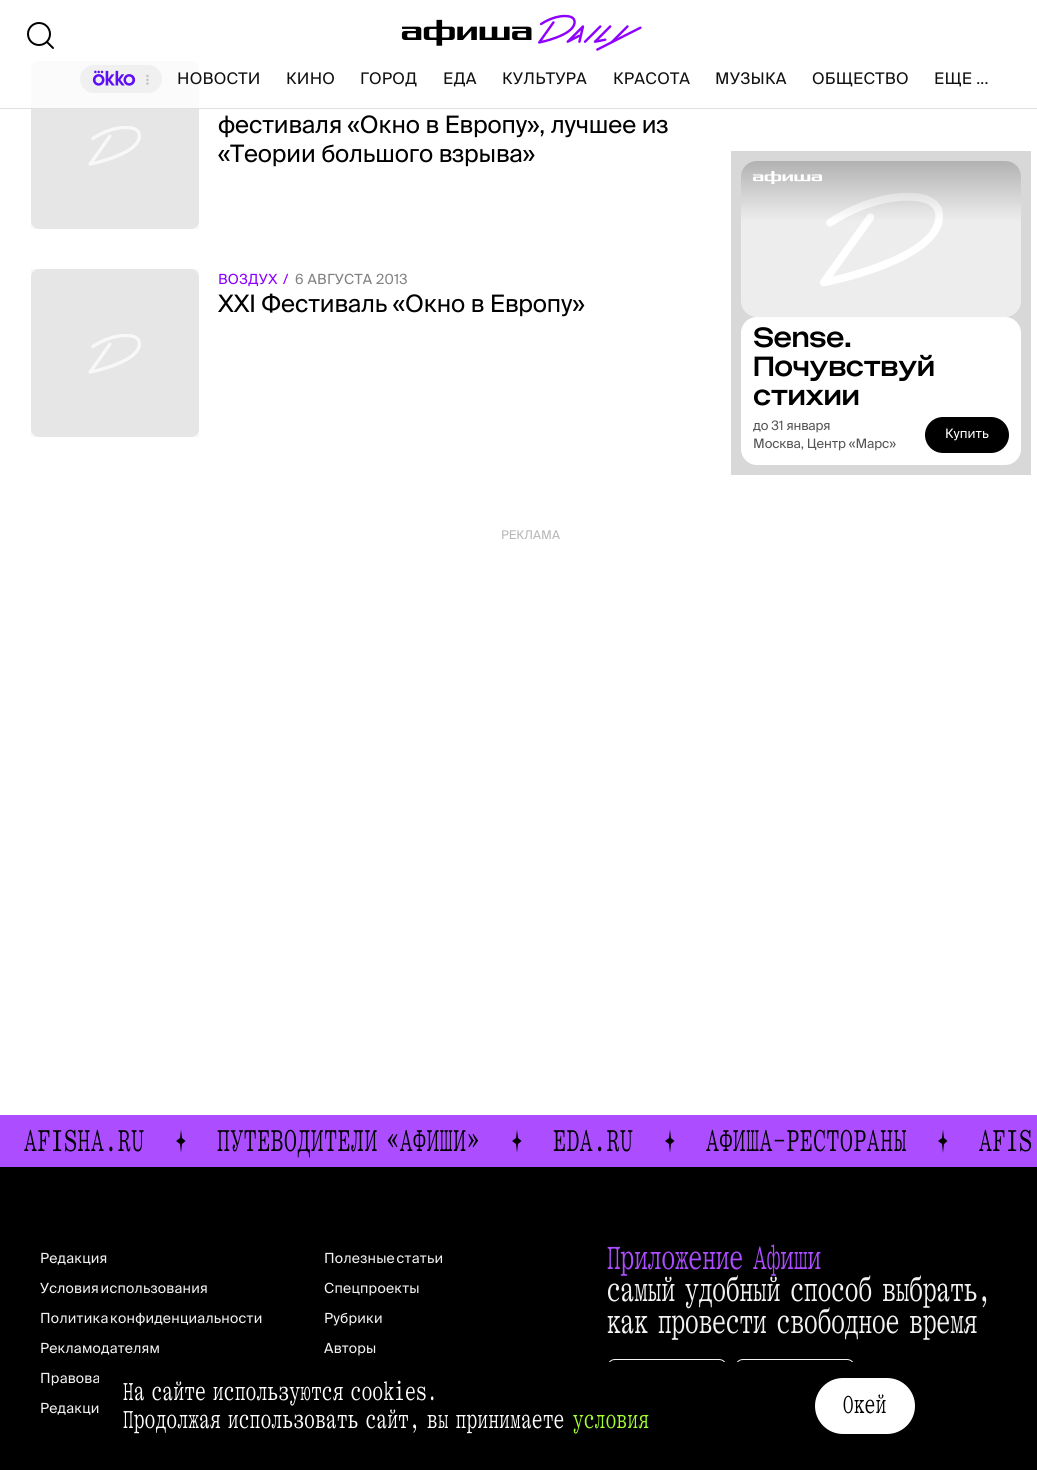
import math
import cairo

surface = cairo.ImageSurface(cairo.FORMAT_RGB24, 1037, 1470)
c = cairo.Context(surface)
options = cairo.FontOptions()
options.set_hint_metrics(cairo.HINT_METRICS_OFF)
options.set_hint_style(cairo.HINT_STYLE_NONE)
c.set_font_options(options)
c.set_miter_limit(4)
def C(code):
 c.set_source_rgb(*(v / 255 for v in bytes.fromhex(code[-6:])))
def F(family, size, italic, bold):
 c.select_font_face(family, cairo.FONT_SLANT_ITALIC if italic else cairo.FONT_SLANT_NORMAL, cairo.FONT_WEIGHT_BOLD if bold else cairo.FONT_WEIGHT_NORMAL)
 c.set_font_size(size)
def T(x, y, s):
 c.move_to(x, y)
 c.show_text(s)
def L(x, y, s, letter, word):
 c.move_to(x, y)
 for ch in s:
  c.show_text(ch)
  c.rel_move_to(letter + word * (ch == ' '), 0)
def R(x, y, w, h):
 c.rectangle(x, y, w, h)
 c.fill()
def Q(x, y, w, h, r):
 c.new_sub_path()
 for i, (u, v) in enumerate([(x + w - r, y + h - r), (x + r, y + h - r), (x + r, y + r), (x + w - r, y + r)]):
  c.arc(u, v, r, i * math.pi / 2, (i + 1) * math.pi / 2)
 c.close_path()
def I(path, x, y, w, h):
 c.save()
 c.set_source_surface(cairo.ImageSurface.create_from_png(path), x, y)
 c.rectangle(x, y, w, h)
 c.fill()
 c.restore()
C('ffffff')
c.paint()
C('ededed')
Q(31,61,168,168,8)
c.fill()
I('4.png',88,126,53,40)
c.set_source_rgba(0,0,0,0.03)
R(31,61,168,168)
c.set_source_rgba(1,1,1,0.85)
R(31,61,168,47)
I('1.png',401,14,241,37)
C('e0e0e0')
R(0,108,1037,1)
I('2.png',27,22,27,27)
C('f0f0f0')
Q(80,65,82,28,14)
c.fill()
I('3.png',92,70,44,16)
C('bfbfbf')
c.arc(147.5,76,1.2,0,2 * math.pi)
c.fill()
c.arc(147.5,79.8,1.2,0,2 * math.pi)
c.fill()
c.arc(147.5,83.5,1.2,0,2 * math.pi)
c.fill()
F('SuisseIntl',16,0,0)
C('111111')
L(177,84,'НОВОСТИ',.25,0)
L(286,84,'КИНО',.25,0)
L(360,84,'ГОРОД',.25,0)
L(443,84,'ЕДА',.25,0)
L(502,84,'КУЛЬТУРА',.25,0)
L(613,84,'КРАСОТА',.25,0)
L(715,84,'МУЗЫКА',.25,0)
L(812,84,'ОБЩЕСТВО',.25,0)
L(934,84,'ЕЩЕ ...',.25,0)
F('SuisseIntl',24,0,0)
C('000000')
L(218,133,'фестиваля «Окно в Европу», лучшее из',-.1,0)
L(218,162,'«Теории большого взрыва»',-.1,0)
C('ededed')
Q(31,269,168,168,8)
c.fill()
I('4.png',88,334,53,40)
c.set_source_rgba(0,0,0,0.03)
R(31,269,168,168)
F('SuisseIntl',14,0,0)
C('8e00ff')
L(218,284,'ВОЗДУХ',.25,0)
L(283,284,'/',.25,0)
C('808080')
L(295,284,'6 АВГУСТА 2013',.25,0)
F('SuisseIntl',24,0,0)
C('000000')
L(218,312,'XXI Фестиваль «Окно в Европу»',-.1,0)
C('d8d8d8')
R(731,151,300,324)
C('ededed')
Q(741,161,280,156,16)
c.fill()
I('5.png',820,193,123,94)
gradient = cairo.LinearGradient(881,161,881,221)
gradient.add_color_stop_rgba(0,0,0,0,.25)
gradient.add_color_stop_rgba(1,0,0,0,0)
c.set_source(gradient)
c.new_path()
c.move_to(757,161)
c.line_to(1005,161)
c.curve_to(1014,161,1021,168,1021,177)
c.line_to(1021,221)
c.line_to(741,221)
c.line_to(741,177)
c.curve_to(741,168,748,161,757,161)
c.close_path()
c.fill()
I('6.png',753,171,69,13)
C('ffffff')
Q(741,317,280,148,16)
c.fill()
F('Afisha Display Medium',27,0,0)
C('000000')
L(753,347,'Sense.',-.5,0)
L(753,376,'Почувствуй',-.5,0)
L(753,405,'стихии',-.5,0)
F('SuisseIntl',13,0,0)
C('545454')
L(753,430,'до 31 января',-.1,0)
L(753,448,'Москва, Центр «Марс»',-.1,0)
C('000000')
Q(925,417,84,36,18)
c.fill()
C('ffffff')
T(945,438,'Купить')
F('SuisseIntl',12,0,0)
C('b8b8b8')
T(501,539,'РЕКЛАМА')
C('ac4dff')
R(0,1115,1037,52)
F('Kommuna',32,0,0)
C('000000')
L(24,1151,'AFISHA.RU',.6,0)
c.new_path()
c.move_to(176,1141)
c.line_to(180,1138)
c.line_to(181,1129.5)
c.line_to(182,1138)
c.line_to(185.5,1141)
c.line_to(182,1144)
c.line_to(181,1153)
c.line_to(180,1144)
c.close_path()
c.fill()
L(217,1151,'ПУТЕВОДИТЕЛИ «АФИШИ»',.6,-5)
c.new_path()
c.move_to(512,1141)
c.line_to(516,1138)
c.line_to(517,1129.5)
c.line_to(518,1138)
c.line_to(521.5,1141)
c.line_to(518,1144)
c.line_to(517,1153)
c.line_to(516,1144)
c.close_path()
c.fill()
L(553,1151,'EDA.RU',.6,0)
c.new_path()
c.move_to(665,1141)
c.line_to(669,1138)
c.line_to(670,1129.5)
c.line_to(671,1138)
c.line_to(674.5,1141)
c.line_to(671,1144)
c.line_to(670,1153)
c.line_to(669,1144)
c.close_path()
c.fill()
L(706,1151,'АФИША-РЕСТОРАНЫ',.6,0)
c.new_path()
c.move_to(938,1141)
c.line_to(942,1138)
c.line_to(943,1129.5)
c.line_to(944,1138)
c.line_to(947.5,1141)
c.line_to(944,1144)
c.line_to(943,1153)
c.line_to(942,1144)
c.close_path()
c.fill()
L(979,1151,'AFIS',.6,0)
R(0,1167,1037,303)
F('SuisseIntl',14,0,0)
C('f2f2f2')
L(40,1263,'Редакция',.25,0)
L(40,1293,'Условия использования',.25,-2)
L(40,1323,'Политика конфиденциальности',.25,-2)
L(40,1353,'Рекламодателям',.25,0)
L(40,1383,'Правова',.25,-2)
L(40,1413,'Редакци',.25,-2)
L(324,1263,'Полезные статьи',.25,-2)
L(324,1293,'Спецпроекты',.25,0)
L(324,1323,'Рубрики',.25,0)
L(324,1353,'Авторы',.25,0)
F('Kommuna',34,0,0)
C('ac4dff')
L(607,1269,'Приложение Афиши',0,-3.5)
C('f2f2f2')
L(607,1301,'самый удобный способ выбрать,',0,-3.5)
L(607,1333,'как провести свободное время',0,-3.5)
I('7.png',608,1359,118,3)
I('7.png',736,1359,118,3)
C('000000')
Q(99,1362,840,92,16)
c.fill()
F('Kommuna',26,0,0)
C('ffffff')
L(123,1400,'На сайте используются cookies.',.5,-4)
L(123,1428,'Продолжая использовать сайт, вы принимаете',.5,-4)
C('a4ff30')
L(573,1428,'условия',.5,0)
C('ffffff')
Q(815,1378,100,56,28)
c.fill()
C('000000')
L(843,1413,'Окей',.5,0)
surface.write_to_png('o.png')
